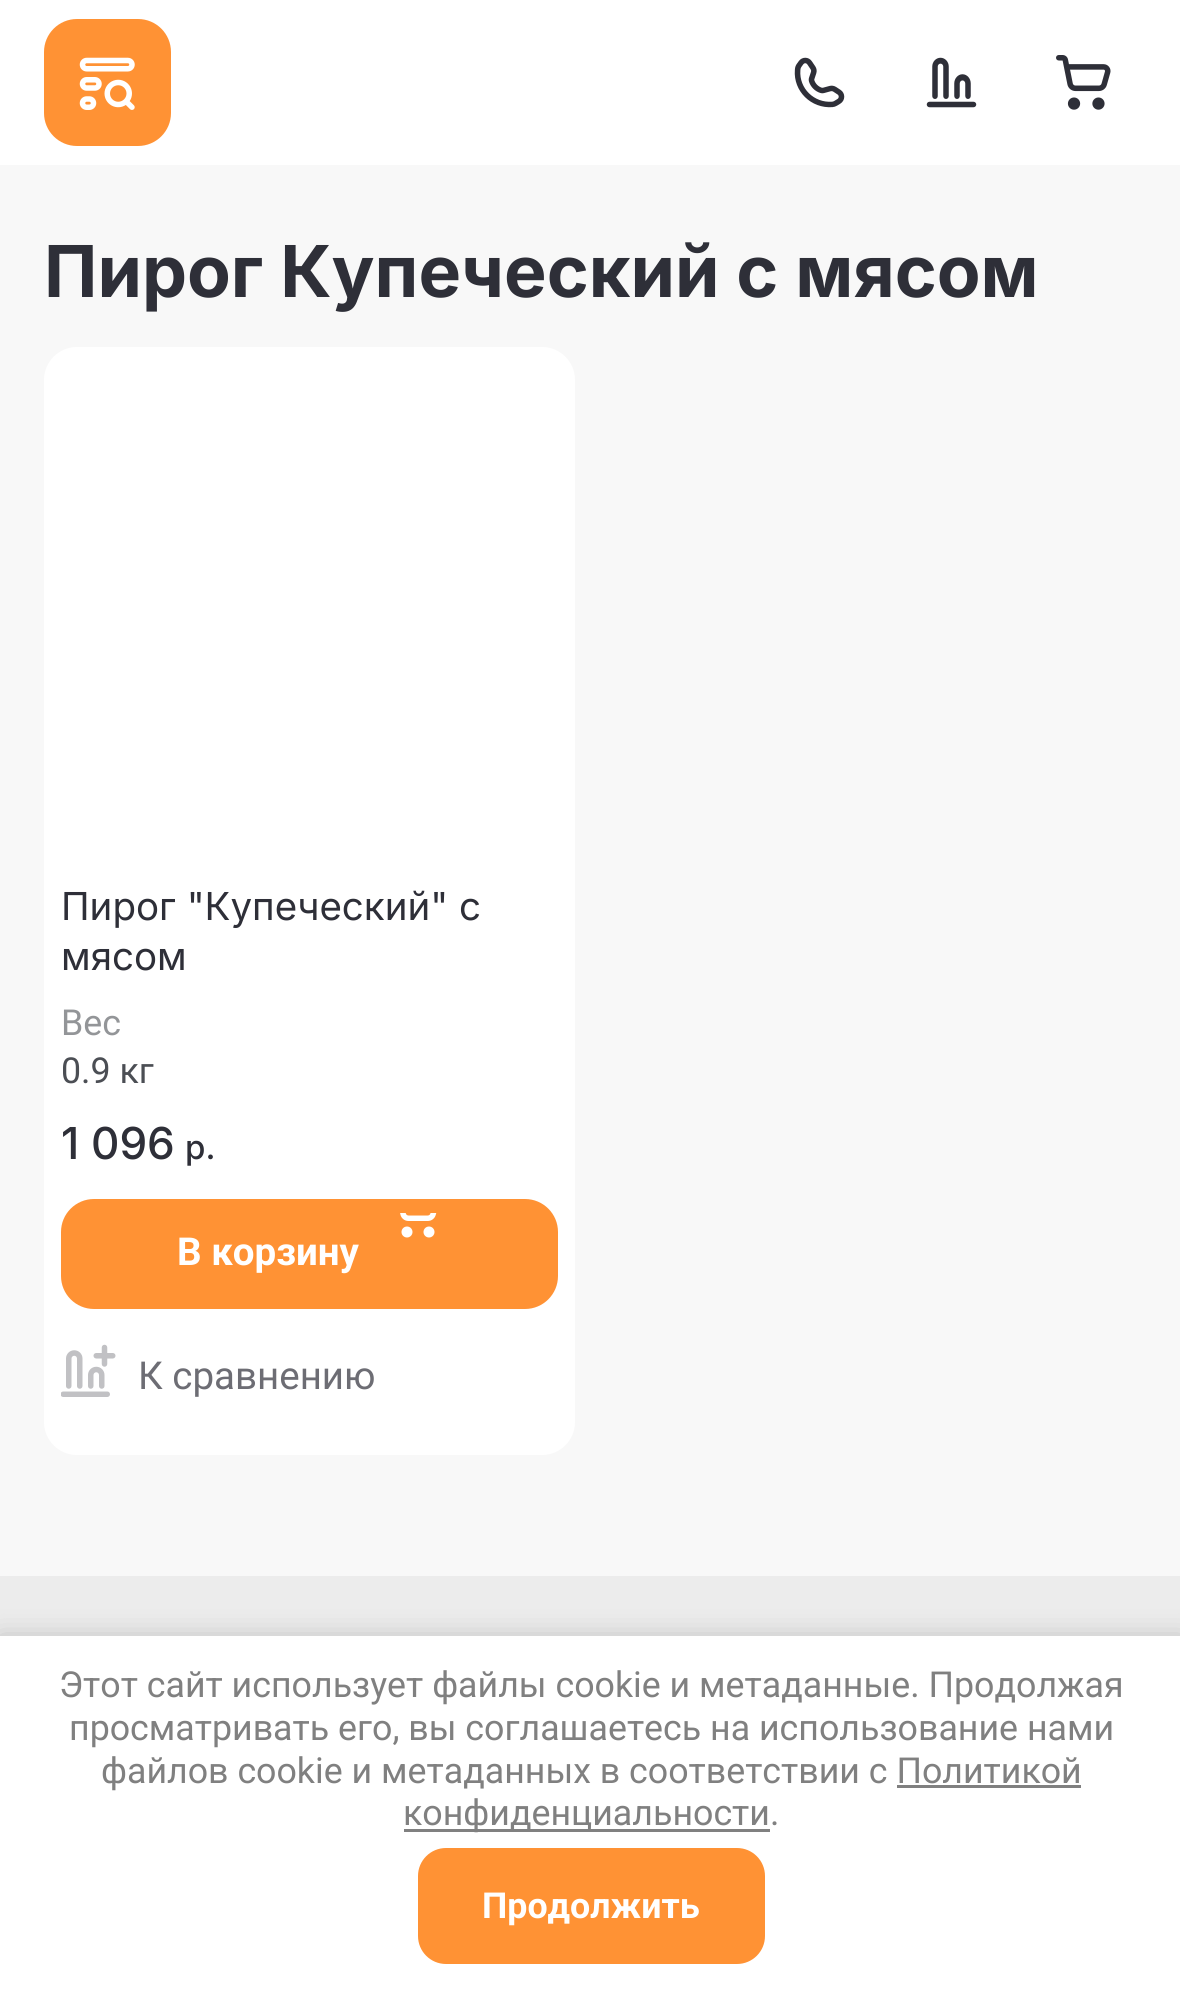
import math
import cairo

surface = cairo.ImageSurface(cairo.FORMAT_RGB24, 1180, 1991)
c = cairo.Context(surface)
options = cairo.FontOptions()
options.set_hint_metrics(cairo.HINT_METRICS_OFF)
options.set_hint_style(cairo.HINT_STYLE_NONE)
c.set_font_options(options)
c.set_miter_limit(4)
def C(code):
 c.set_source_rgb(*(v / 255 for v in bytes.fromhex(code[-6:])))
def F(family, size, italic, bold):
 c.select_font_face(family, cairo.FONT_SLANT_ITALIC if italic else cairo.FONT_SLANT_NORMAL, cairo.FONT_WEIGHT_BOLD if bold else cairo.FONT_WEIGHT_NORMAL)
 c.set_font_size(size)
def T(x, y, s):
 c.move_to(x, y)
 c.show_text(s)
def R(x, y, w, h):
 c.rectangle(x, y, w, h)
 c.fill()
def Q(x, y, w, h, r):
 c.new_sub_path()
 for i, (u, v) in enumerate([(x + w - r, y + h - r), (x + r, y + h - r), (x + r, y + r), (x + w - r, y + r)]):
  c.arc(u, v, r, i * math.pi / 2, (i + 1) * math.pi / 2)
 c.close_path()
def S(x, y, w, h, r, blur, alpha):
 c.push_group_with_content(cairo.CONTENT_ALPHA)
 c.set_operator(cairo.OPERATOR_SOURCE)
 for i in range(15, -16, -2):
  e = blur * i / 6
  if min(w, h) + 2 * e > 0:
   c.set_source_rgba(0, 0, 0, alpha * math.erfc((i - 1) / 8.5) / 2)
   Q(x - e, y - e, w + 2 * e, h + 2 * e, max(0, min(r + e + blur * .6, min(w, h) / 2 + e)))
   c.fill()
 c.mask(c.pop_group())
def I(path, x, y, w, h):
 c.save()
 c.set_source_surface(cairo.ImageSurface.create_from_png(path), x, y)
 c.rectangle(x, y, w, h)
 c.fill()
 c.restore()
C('f8f8f8')
c.paint()
C('ffffff')
R(0,0,1180,165)
C('ff9234')
Q(44,19,127,127,33)
c.fill()
I('1.png',79,57,56,53)
I('2.png',794,57,51,51)
I('3.png',926,57,51,51)
I('4.png',1056,55,55,55)
F('Inter',71.5,0,1)
C('2e2f38')
T(44,297,'Пирог Купеческий с мясом')
C('ffffff')
Q(44,347,531,1108,33)
c.fill()
F('Inter',38.5,0,0)
C('2e2f38')
T(61,920,'Пирог "Купеческий" с')
T(61,970,'мясом')
F('Roboto',35.75,0,0)
C('939598')
T(61,1035,'Вес')
C('4b4e54')
T(61,1083,'0.9 кг')
F('Inter Medium',44,0,0)
C('2e2f38')
T(61,1159,'1 096')
F('Inter Medium',33,0,0)
T(185,1159,'р.')
C('ff9234')
Q(61,1199,497,110,33)
c.fill()
I('5.png',400,1213,37,25)
F('Roboto',38.5,0,1)
C('ffffff')
T(177,1265,'В корзину')
I('6.png',61,1344,55,53)
F('Roboto',38.5,0,0)
C('6d6d74')
T(138,1389,'К сравнению')
C('ececec')
R(0,1576,1180,60)
C('000000')
S(0,1639,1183,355,0,14,.23)
C('ffffff')
R(0,1636,1180,355)
F('Roboto',35.75,0,0)
C('808080')
T(59,1697,'Этот сайт использует файлы cookie и метаданные. Продолжая')
T(69,1740,'просматривать его, вы соглашаетесь на использование нами')
T(101,1783,'файлов cookie и метаданных в соответствии с Политикой')
R(404,1829,366,3)
T(403,1825,'конфиденциальности.')
R(897,1785,184,3)
C('ff9234')
Q(418,1848,347,116,28)
c.fill()
F('Roboto',35.75,0,1)
C('ffffff')
T(482,1918,'Продолжить')
surface.write_to_png('o.png')
